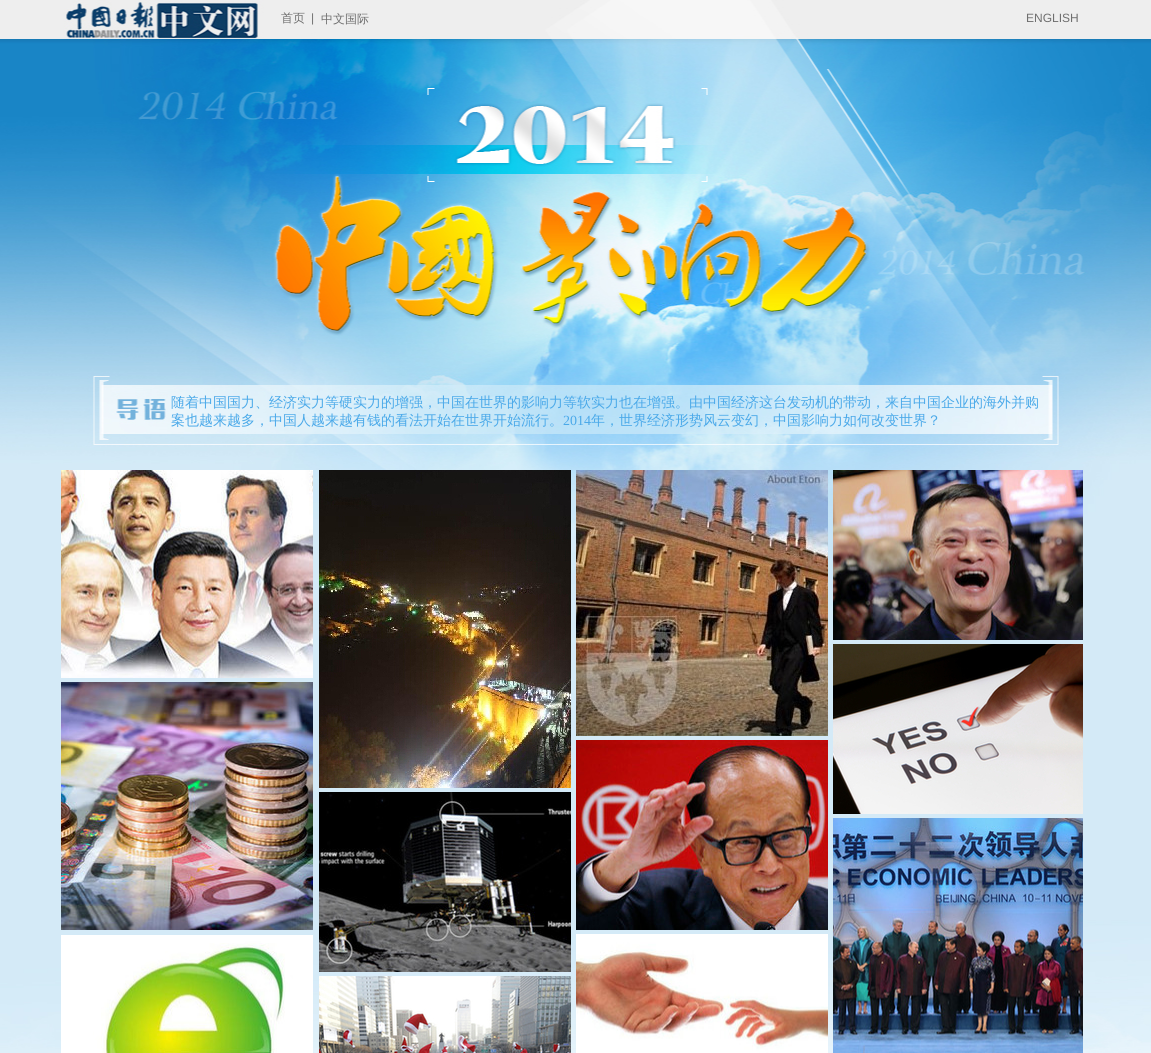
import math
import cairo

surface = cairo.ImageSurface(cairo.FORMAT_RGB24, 1151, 1053)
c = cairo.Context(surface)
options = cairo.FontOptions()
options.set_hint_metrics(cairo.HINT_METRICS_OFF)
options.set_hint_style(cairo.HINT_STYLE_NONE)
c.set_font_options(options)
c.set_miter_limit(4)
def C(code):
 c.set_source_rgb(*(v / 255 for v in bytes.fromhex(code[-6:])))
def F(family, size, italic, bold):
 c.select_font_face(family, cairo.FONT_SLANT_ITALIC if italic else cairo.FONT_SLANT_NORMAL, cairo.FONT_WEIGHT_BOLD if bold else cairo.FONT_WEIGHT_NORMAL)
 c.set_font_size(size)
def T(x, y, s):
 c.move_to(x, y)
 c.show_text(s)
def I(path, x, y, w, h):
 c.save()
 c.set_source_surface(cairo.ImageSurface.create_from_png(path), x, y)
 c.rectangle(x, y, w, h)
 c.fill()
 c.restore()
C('ffffff')
c.paint()
I('1.png',0,0,1151,1053)
F('WenQuanYi Zen Hei Medium',12,0,0)
C('6f6f6f')
T(281,22,'首页')
F('Liberation Sans',12,0,0)
T(311,22,'|')
F('WenQuanYi Zen Hei Medium',12,0,0)
T(321,23,'中文国际')
F('Liberation Sans',12,0,0)
T(1026,22,'ENGLISH')
F('WenQuanYi Zen Hei Medium',14,0,0)
C('4aa9e9')
T(171,407,'随着中国国力、经济实力等硬实力的增强，中国在世界的影响力等软实力也在增强。由中国经济这台发动机的带动，来自中国企业的海外并购')
T(171,425,'案也越来越多，中国人越来越有钱的看法开始在世界开始流行。')
F('Liberation Serif',14,0,0)
T(563,425,'2014')
F('WenQuanYi Zen Hei Medium',14,0,0)
T(591,425,'年，世界经济形势风云变幻，中国影响力如何改变世界？')
I('2.png',61,470,1022,583)
surface.write_to_png('o.png')
